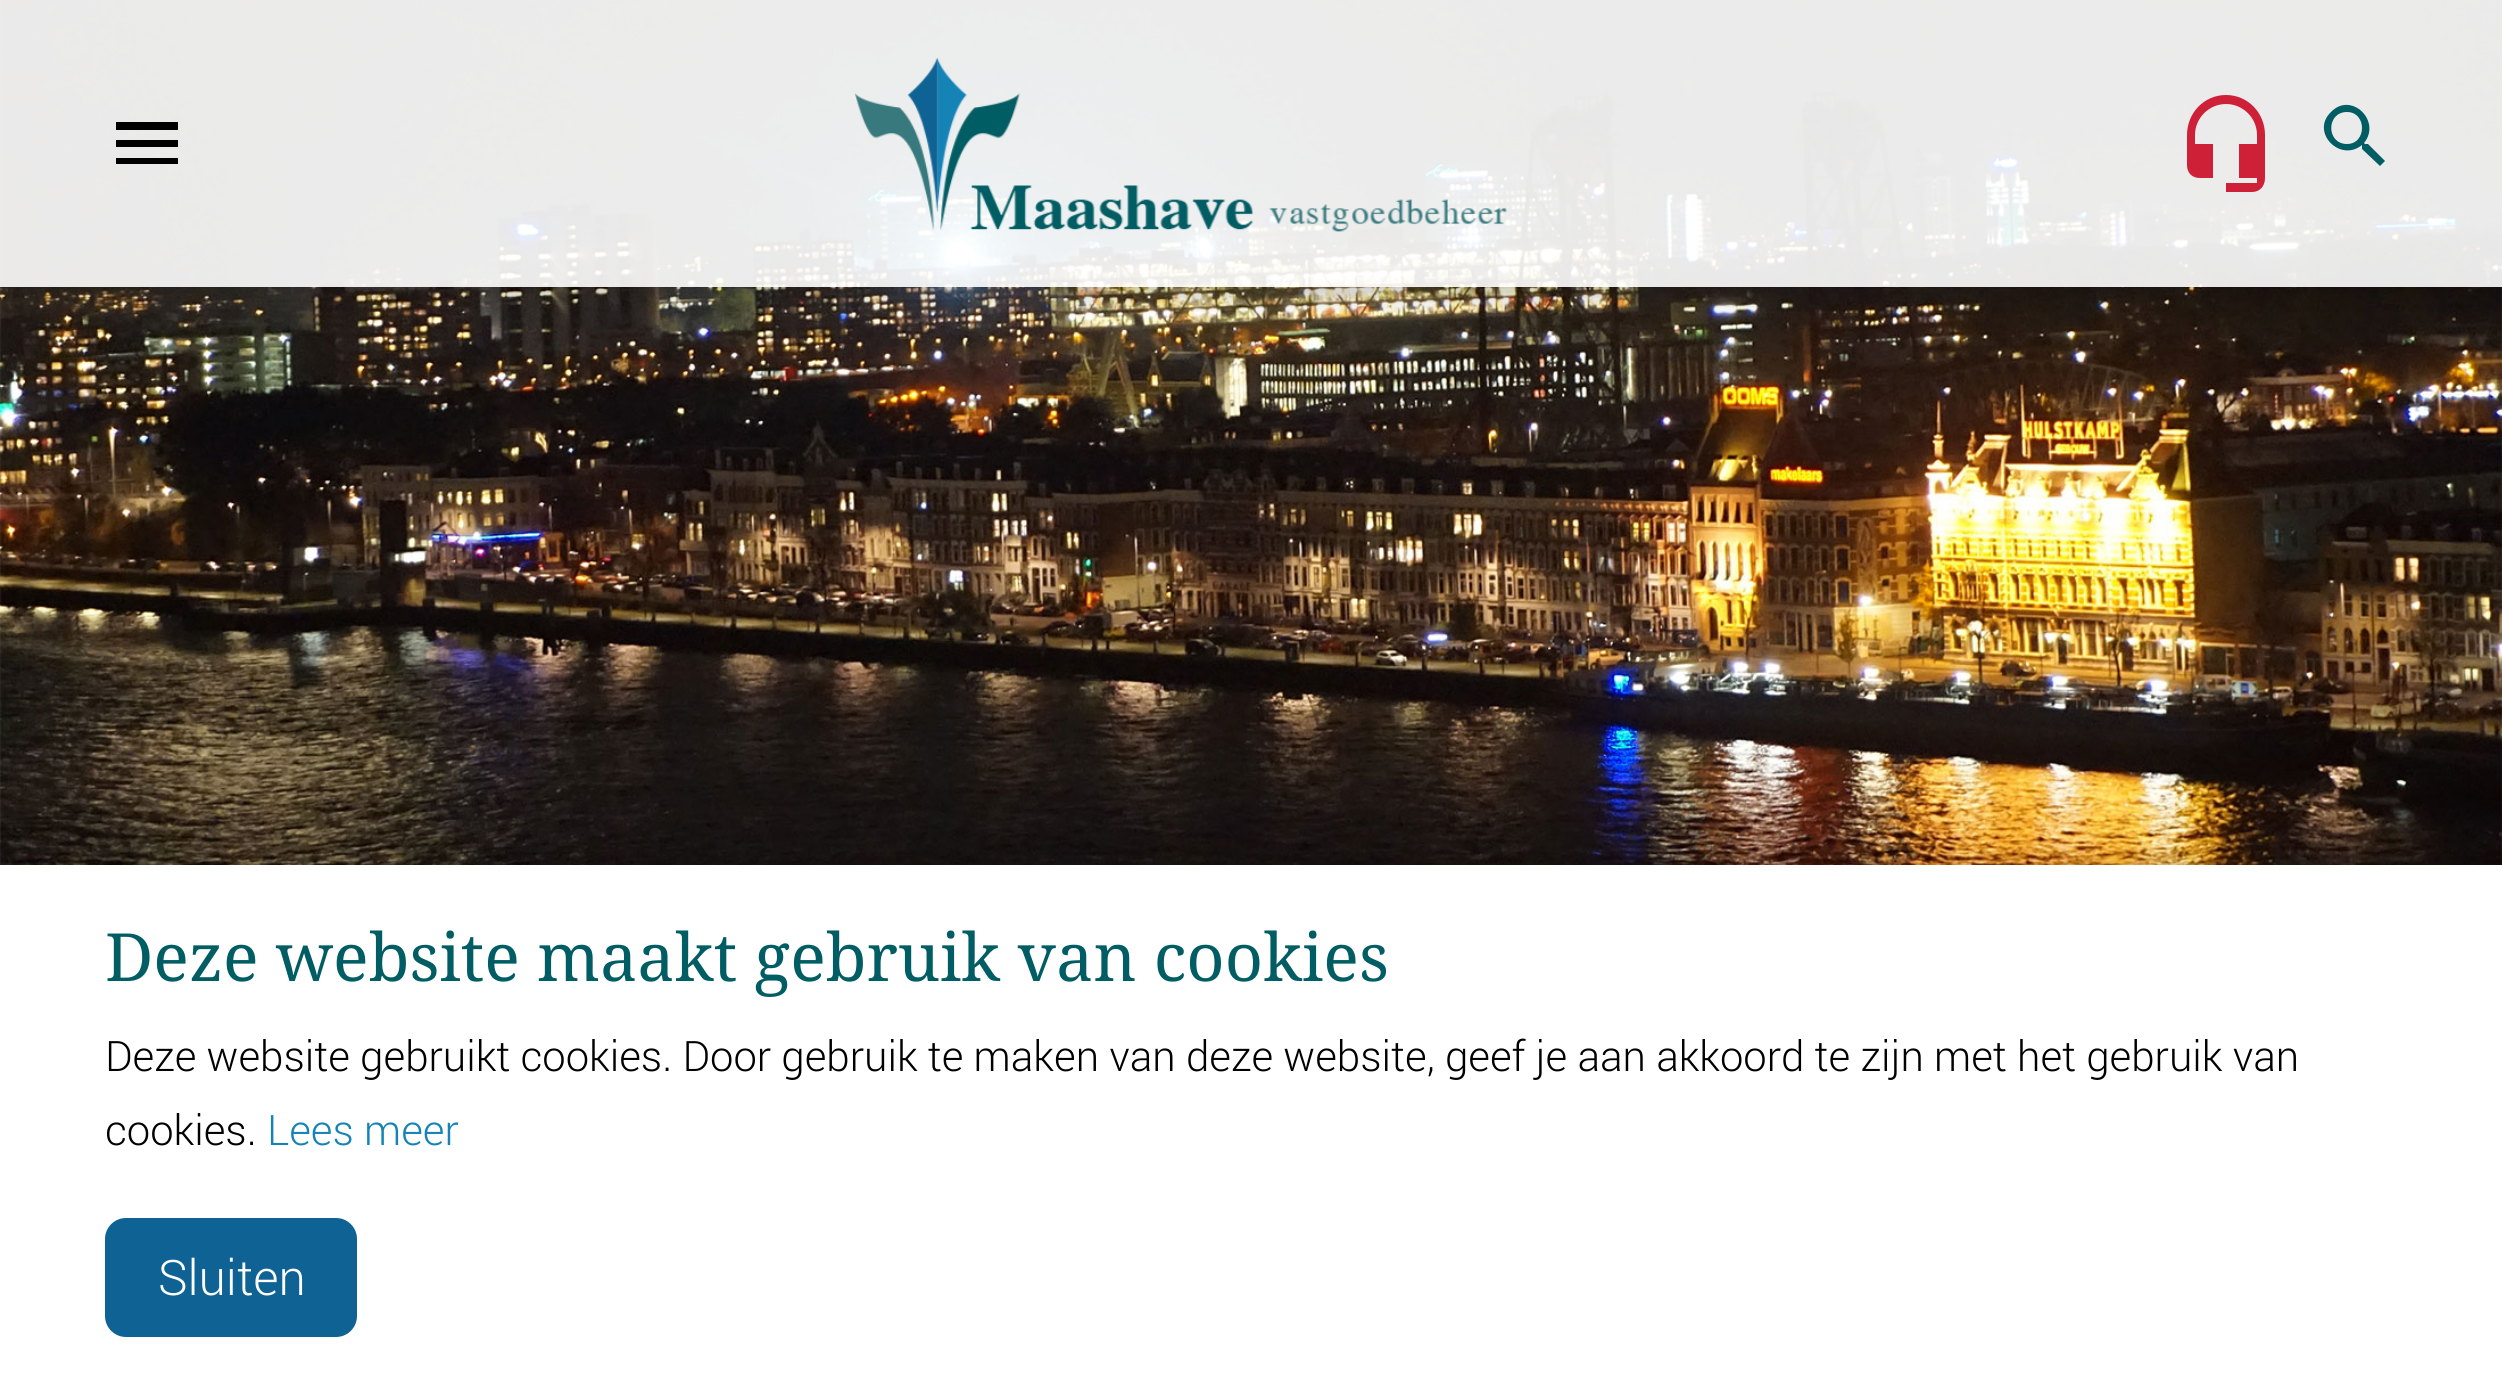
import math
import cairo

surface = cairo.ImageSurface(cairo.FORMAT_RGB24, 2502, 1388)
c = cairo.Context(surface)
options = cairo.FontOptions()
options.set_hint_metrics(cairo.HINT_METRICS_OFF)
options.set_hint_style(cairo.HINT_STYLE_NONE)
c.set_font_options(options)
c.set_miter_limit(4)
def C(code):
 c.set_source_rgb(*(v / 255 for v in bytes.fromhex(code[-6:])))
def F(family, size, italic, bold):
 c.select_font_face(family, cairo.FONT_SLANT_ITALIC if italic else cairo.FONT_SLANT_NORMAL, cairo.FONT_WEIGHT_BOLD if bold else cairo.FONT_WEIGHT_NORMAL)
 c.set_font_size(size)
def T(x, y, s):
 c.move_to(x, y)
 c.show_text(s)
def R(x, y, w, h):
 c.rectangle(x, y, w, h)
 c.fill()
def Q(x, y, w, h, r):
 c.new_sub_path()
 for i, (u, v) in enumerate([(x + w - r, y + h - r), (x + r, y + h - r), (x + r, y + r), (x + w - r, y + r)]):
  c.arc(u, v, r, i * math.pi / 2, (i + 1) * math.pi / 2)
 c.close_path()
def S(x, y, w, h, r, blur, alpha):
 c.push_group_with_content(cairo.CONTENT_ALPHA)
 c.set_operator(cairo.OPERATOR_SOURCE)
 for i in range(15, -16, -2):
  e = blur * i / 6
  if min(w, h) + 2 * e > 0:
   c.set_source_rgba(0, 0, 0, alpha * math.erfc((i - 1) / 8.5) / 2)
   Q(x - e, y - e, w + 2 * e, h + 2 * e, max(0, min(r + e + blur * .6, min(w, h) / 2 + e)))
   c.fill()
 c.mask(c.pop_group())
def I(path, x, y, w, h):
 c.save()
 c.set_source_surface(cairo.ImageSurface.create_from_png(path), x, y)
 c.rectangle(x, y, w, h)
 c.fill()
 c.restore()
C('ffffff')
c.paint()
I('1.png',0,0,2502,865)
c.save()
c.rectangle(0,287,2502,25)
c.clip()
C('000000')
S(0,4,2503,287,0,14,.3)
c.restore()
c.set_source_rgba(1,1,1,0.9)
R(0,0,2502,287)
C('000000')
c.new_path()
c.move_to(116,164)
c.line_to(178,164)
c.line_to(178,158)
c.line_to(116,158)
c.close_path()
c.move_to(116,147)
c.line_to(178,147)
c.line_to(178,140)
c.line_to(116,140)
c.close_path()
c.move_to(116,122)
c.line_to(116,130)
c.line_to(178,130)
c.line_to(178,122)
c.close_path()
c.fill()
I('2.png',855,58,652,174)
C('ce2036')
c.new_path()
c.move_to(2226,95)
c.curve_to(2204,95,2187,113,2187,135)
c.line_to(2187,165)
c.curve_to(2187,173,2192,178,2200,178)
c.line_to(2213,178)
c.line_to(2213,144)
c.line_to(2195,144)
c.line_to(2195,135)
c.curve_to(2195,118,2209,104,2226,104)
c.curve_to(2243,104,2257,118,2257,135)
c.line_to(2257,144)
c.line_to(2239,144)
c.line_to(2239,178)
c.line_to(2257,178)
c.line_to(2257,183)
c.line_to(2226,183)
c.line_to(2226,192)
c.line_to(2252,192)
c.curve_to(2260,192,2265,186,2265,178)
c.line_to(2265,135)
c.curve_to(2265,113,2248,95,2226,95)
c.close_path()
c.fill()
C('005d63')
c.new_path()
c.move_to(2368,144)
c.line_to(2365,144)
c.line_to(2364,143)
c.curve_to(2382,121,2351,91,2331,112)
c.curve_to(2310,132,2340,163,2362,145)
c.line_to(2362,146)
c.line_to(2362,149)
c.line_to(2380,166)
c.line_to(2385,161)
c.close_path()
c.move_to(2347,144)
c.curve_to(2326,144,2326,112,2347,112)
c.curve_to(2367,112,2367,144,2347,144)
c.close_path()
c.fill()
C('000000')
S(0,868,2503,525,0,14,.2)
C('ffffff')
R(0,865,2502,523)
F('Noto Serif',66.5,0,0)
C('005d63')
T(105,981,'Deze website maakt gebruik van cookies')
F('Roboto Light',42,0,0)
C('000000')
T(105,1071,'Deze website gebruikt cookies. Door gebruik te maken van deze website, geef je aan akkoord te zijn met het gebruik van')
T(105,1145,'cookies.')
C('1683b7')
T(267,1145,'Lees meer')
C('0f6394')
Q(105,1218,252,119,21)
c.fill()
F('Roboto Light',49,0,0)
C('ffffff')
T(158,1295,'Sluiten')
surface.write_to_png('o.png')
